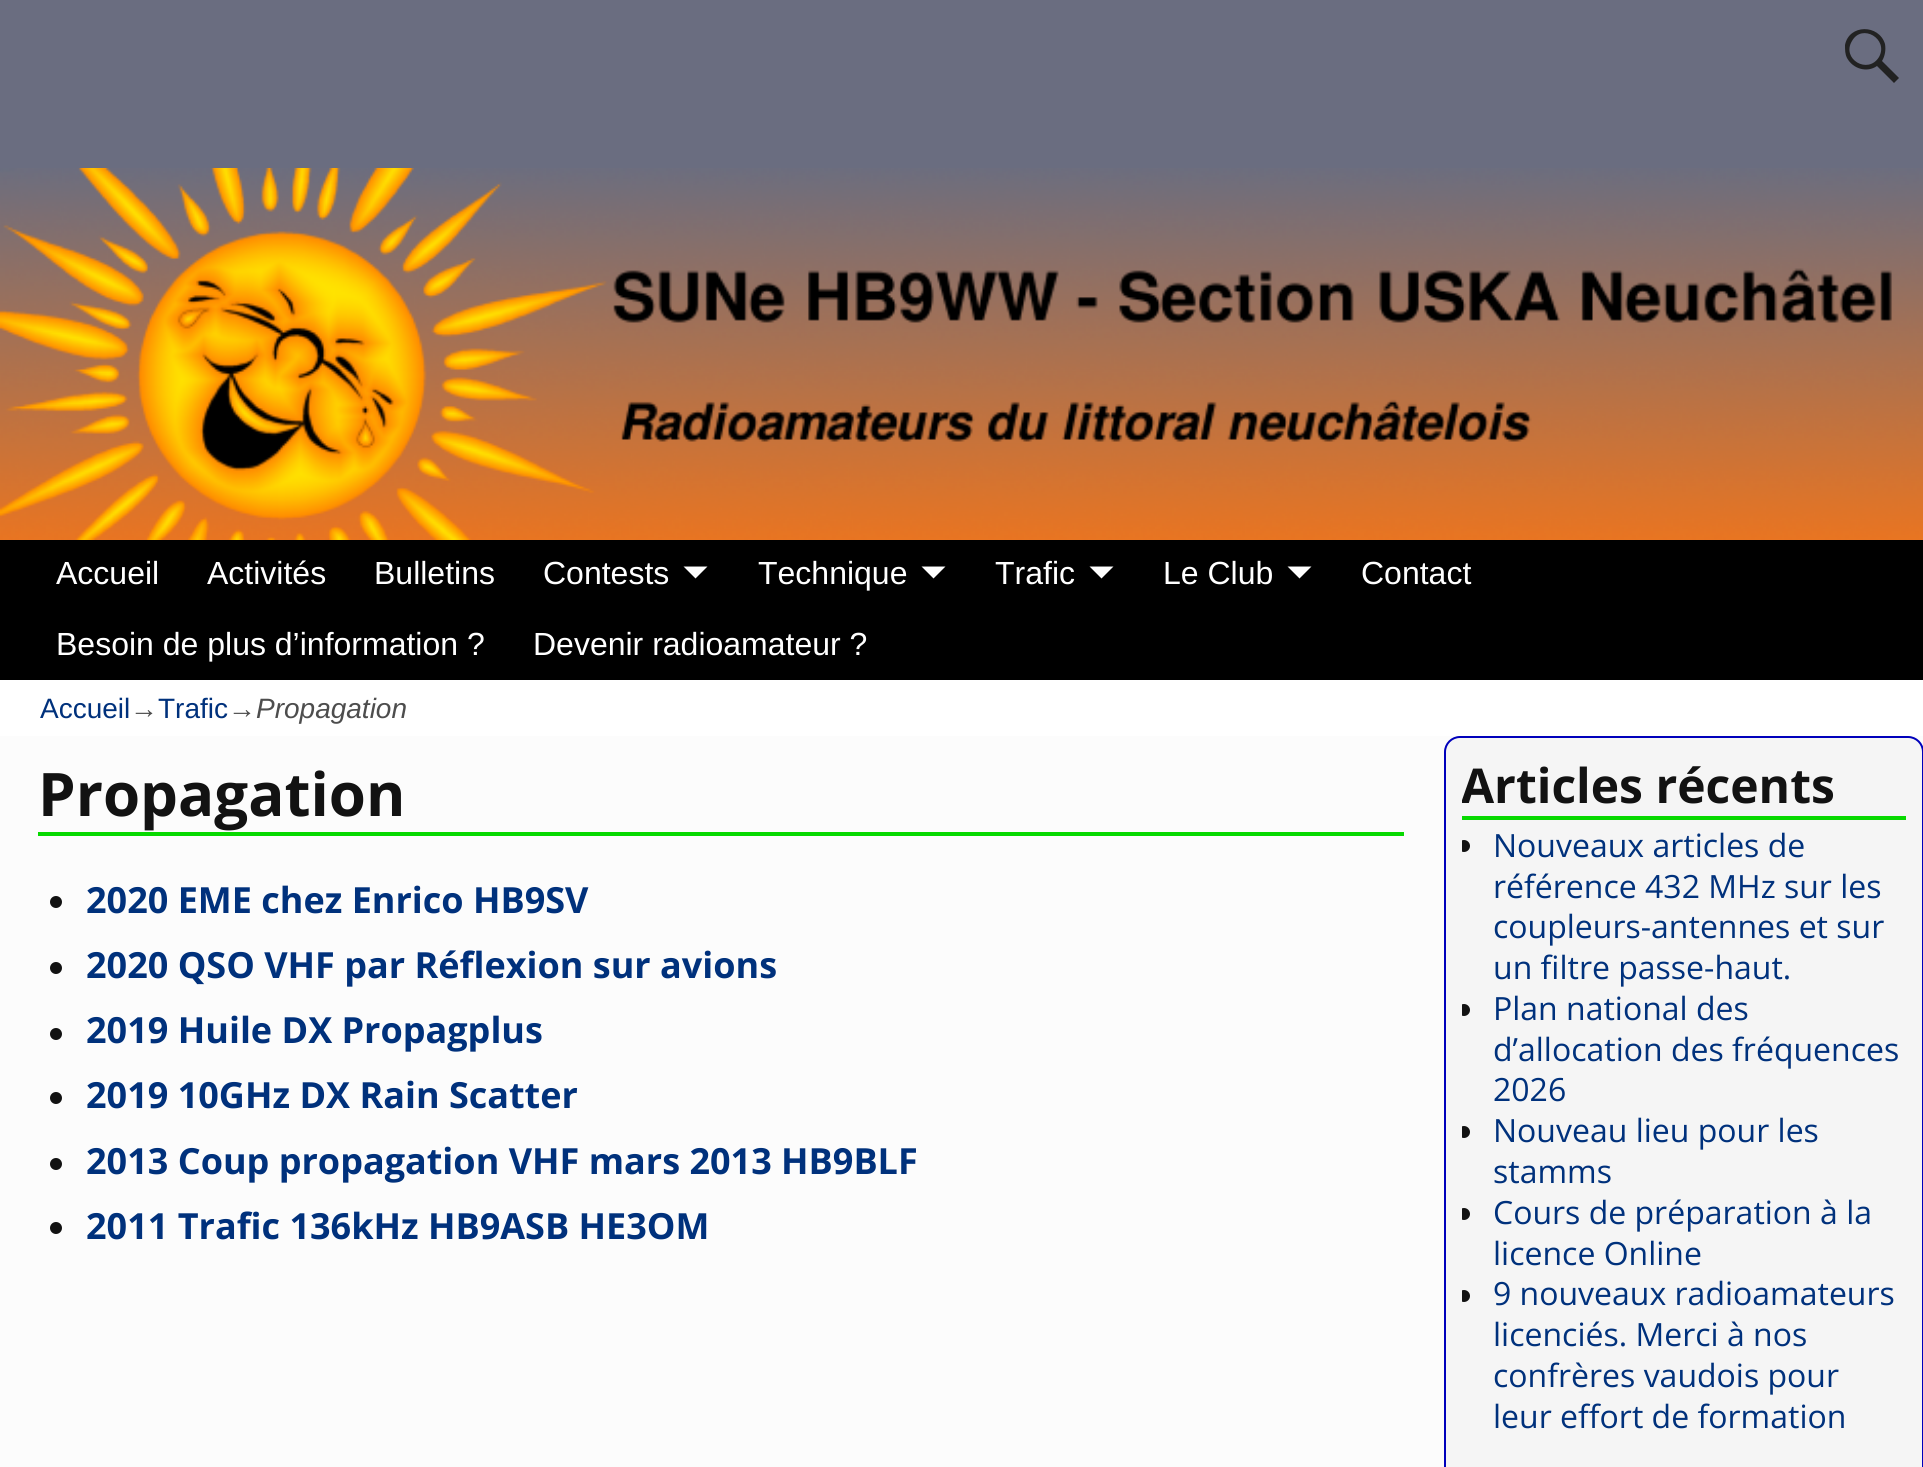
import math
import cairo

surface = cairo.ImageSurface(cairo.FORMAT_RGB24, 1923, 1467)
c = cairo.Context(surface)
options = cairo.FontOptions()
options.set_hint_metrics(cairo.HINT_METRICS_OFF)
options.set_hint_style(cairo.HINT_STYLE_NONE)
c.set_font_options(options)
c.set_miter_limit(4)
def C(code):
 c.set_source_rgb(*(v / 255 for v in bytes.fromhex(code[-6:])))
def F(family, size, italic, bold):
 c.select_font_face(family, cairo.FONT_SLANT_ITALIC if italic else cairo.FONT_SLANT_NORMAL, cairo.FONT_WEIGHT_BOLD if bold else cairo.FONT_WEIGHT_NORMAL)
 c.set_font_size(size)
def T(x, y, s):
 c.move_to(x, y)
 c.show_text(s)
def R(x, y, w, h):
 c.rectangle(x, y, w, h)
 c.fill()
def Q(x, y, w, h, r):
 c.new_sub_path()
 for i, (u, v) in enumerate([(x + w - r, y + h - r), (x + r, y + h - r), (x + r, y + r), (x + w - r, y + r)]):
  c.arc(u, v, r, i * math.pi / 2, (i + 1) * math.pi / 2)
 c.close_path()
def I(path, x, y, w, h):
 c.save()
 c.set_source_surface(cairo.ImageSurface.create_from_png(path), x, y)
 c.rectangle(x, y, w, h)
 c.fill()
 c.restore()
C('fcfcfc')
c.paint()
C('6a6d80')
R(0,0,1923,173)
C('222222')
c.new_path()
c.move_to(1899,78)
c.line_to(1894,83)
c.line_to(1877,66)
c.curve_to(1867,73,1853,69,1847,58)
c.curve_to(1845,54,1845,50,1845,45)
c.curve_to(1849,24,1879,24,1885,44)
c.curve_to(1886,50,1885,56,1882,61)
c.close_path()
c.move_to(1852,41)
c.curve_to(1841,59,1868,75,1879,57)
c.curve_to(1889,39,1862,23,1852,41)
c.close_path()
c.fill()
I('1.png',0,168,1923,372)
C('000000')
R(0,540,1923,140)
F('Liberation Sans',32,0,0)
C('ffffff')
T(56,584,'Accueil')
T(207,584,'Activités')
T(374,584,'Bulletins')
T(543,584,'Contests')
c.new_path()
c.move_to(683.5,566.5)
c.line_to(707.5,566.5)
c.line_to(695.5,578.5)
c.close_path()
c.fill()
T(758,584,'Technique')
c.new_path()
c.move_to(921.5,566.5)
c.line_to(945.5,566.5)
c.line_to(933.5,578.5)
c.close_path()
c.fill()
T(995,584,'Trafic')
c.new_path()
c.move_to(1089.5,566.5)
c.line_to(1113.5,566.5)
c.line_to(1101.5,578.5)
c.close_path()
c.fill()
T(1163,584,'Le Club')
c.new_path()
c.move_to(1287.5,566.5)
c.line_to(1311.5,566.5)
c.line_to(1299.5,578.5)
c.close_path()
c.fill()
T(1361,584,'Contact')
T(56,655,'Besoin de plus d’information ?')
T(533,655,'Devenir radioamateur ?')
R(0,680,1923,56)
F('Liberation Sans',28,0,0)
C('00317c')
T(40,718,'Accueil')
C('4d4d4d')
T(130,718,'→')
C('00317c')
T(158,718,'Trafic')
C('4d4d4d')
T(228,718,'→')
F('Liberation Sans',28,1,0)
T(256,718,'Propagation')
C('07d900')
R(38,832,1366,4)
F('Open Sans',60,0,1)
C('121212')
T(38,816,'Propagation')
c.new_path()
c.arc(56,902,6,0,2 * math.pi)
c.fill()
F('Open Sans',36,0,1)
C('00317c')
T(86,913,'2020 EME chez Enrico HB9SV')
C('121212')
c.new_path()
c.arc(56,968,6,0,2 * math.pi)
c.fill()
C('00317c')
T(86,978,'2020 QSO VHF par Réflexion sur avions')
C('121212')
c.new_path()
c.arc(56,1034,6,0,2 * math.pi)
c.fill()
C('00317c')
T(86,1043,'2019 Huile DX Propagplus')
C('121212')
c.new_path()
c.arc(56,1098,6,0,2 * math.pi)
c.fill()
C('00317c')
T(86,1108,'2019 10GHz DX Rain Scatter')
C('121212')
c.new_path()
c.arc(56,1164,6,0,2 * math.pi)
c.fill()
C('00317c')
T(86,1174,'2013 Coup propagation VHF mars 2013 HB9BLF')
C('121212')
c.new_path()
c.arc(56,1228,6,0,2 * math.pi)
c.fill()
C('00317c')
T(86,1239,'2011 Trafic 136kHz HB9ASB HE3OM')
C('f5f5f5')
Q(1445,737,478,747,15)
c.fill_preserve()
C('0000bb')
c.stroke()
C('07d900')
R(1462,816,444,4)
c.save()
c.rectangle(1462,754,444,682)
c.clip()
F('Open Sans',48,0,1)
C('121212')
T(1461,803,'Articles récents')
c.new_path()
c.arc(1464,846,6,0,2 * math.pi)
c.fill()
c.restore()
F('Open Sans',32,0,0)
C('00317c')
T(1493,857,'Nouveaux articles de')
T(1493,898,'référence 432 MHz sur les')
T(1493,938,'coupleurs-antennes et sur')
T(1493,979,'un filtre passe-haut.')
c.save()
c.rectangle(1462,754,444,682)
c.clip()
C('121212')
c.arc(1464,1010,6,0,2 * math.pi)
c.fill()
c.restore()
T(1493,1020,'Plan national des')
T(1493,1061,'d’allocation des fréquences')
T(1493,1101,'2026')
c.save()
c.rectangle(1462,754,444,682)
c.clip()
C('121212')
c.arc(1464,1132,6,0,2 * math.pi)
c.fill()
c.restore()
T(1493,1142,'Nouveau lieu pour les')
T(1493,1183,'stamms')
c.save()
c.rectangle(1462,754,444,682)
c.clip()
C('121212')
c.arc(1464,1214,6,0,2 * math.pi)
c.fill()
c.restore()
T(1493,1224,'Cours de préparation à la')
T(1493,1265,'licence Online')
c.save()
c.rectangle(1462,754,444,682)
c.clip()
C('121212')
c.arc(1464,1296,6,0,2 * math.pi)
c.fill()
c.restore()
T(1493,1305,'9 nouveaux radioamateurs')
T(1493,1346,'licenciés. Merci à nos')
T(1493,1387,'confrères vaudois pour')
T(1493,1428,'leur effort de formation')
surface.write_to_png('o.png')
